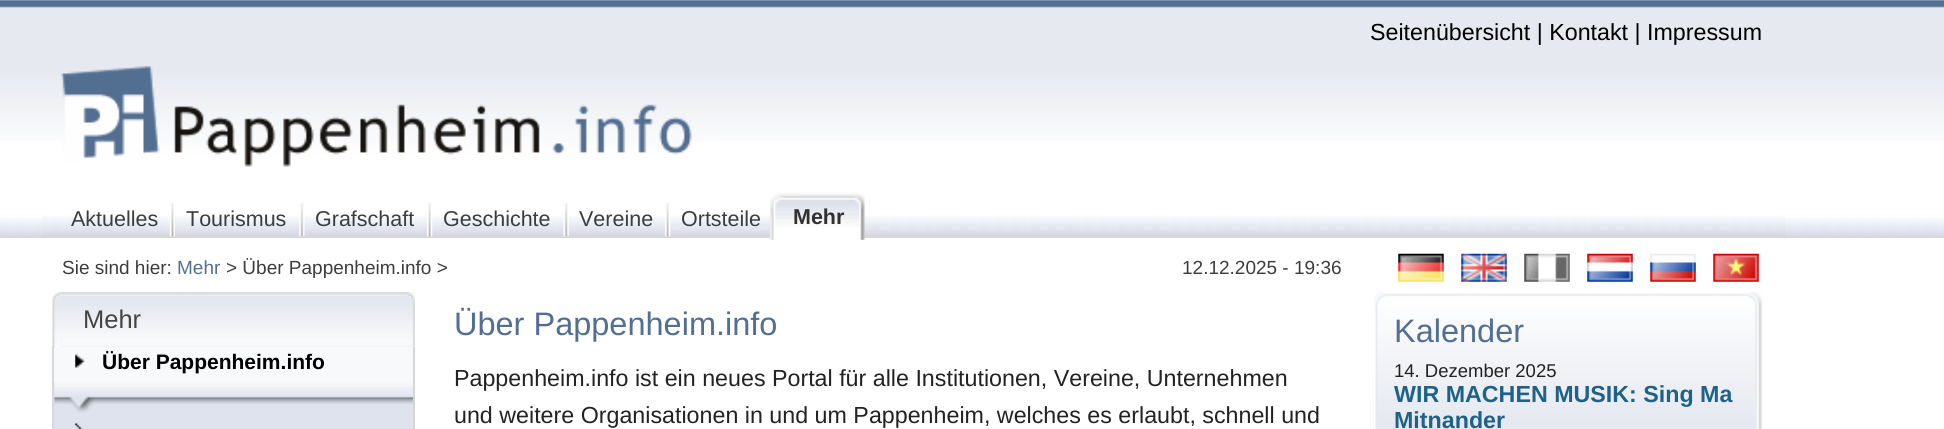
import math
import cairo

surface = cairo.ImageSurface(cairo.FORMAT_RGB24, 1944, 429)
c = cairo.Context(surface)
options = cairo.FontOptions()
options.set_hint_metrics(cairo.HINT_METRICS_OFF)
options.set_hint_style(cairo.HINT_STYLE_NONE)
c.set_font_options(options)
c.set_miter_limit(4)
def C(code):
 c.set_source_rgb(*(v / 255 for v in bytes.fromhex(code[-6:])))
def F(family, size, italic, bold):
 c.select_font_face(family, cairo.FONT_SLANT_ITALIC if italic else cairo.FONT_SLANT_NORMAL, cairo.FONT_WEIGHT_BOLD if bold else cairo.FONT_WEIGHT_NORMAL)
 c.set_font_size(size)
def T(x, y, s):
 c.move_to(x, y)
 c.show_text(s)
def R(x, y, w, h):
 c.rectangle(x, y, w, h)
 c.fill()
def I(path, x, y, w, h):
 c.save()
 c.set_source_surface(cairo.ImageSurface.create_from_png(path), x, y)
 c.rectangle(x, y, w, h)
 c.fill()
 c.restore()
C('ffffff')
c.paint()
I('1.png',0,0,1944,141)
F('Liberation Sans',23.25,0,0)
C('000000')
T(1370,40,'Seitenübersicht | Kontakt | Impressum')
I('2.png',61,66,631,101)
I('3.png',0,218,1944,20)
I('4.png',42,216,1743,20)
I('5.png',169,203,6,34)
F('Liberation Sans',21.5,0,0)
C('3d3d3d')
T(71,226,'Aktuelles')
I('6.png',299,203,6,34)
T(186,226,'Tourismus')
I('7.png',427,203,6,34)
T(315,226,'Grafschaft')
I('8.png',563,203,6,34)
T(443,226,'Geschichte')
I('9.png',665,203,6,34)
T(579,226,'Vereine')
T(681,226,'Ortsteile')
I('10.png',770,192,28,48)
I('11.png',798,192,67,48)
F('Liberation Sans',21.5,0,1)
C('313131')
T(793,224,'Mehr')
F('Liberation Sans',19,0,0)
C('3d3d3d')
T(62,274,'Sie sind hier:')
C('526f92')
T(177,274,'Mehr')
C('3d3d3d')
T(226,274,'> Über Pappenheim.info >')
T(1182,274,'12.12.2025 - 19:36')
I('12.png',1398,253,46,29)
I('13.png',1461,253,46,29)
I('14.png',1524,253,46,29)
I('15.png',1587,253,46,29)
I('16.png',1650,253,46,29)
I('17.png',1713,253,46,29)
I('18.png',52,292,9,55)
C('eceff2')
R(61,292,354,55)
I('19.png',61,292,354,55)
F('Liberation Sans',25.5,0,0)
C('444444')
T(83,328,'Mehr')
C('d8d8d8')
R(52,346,3,83)
C('d6d6d6')
R(413,347,2,82)
C('f8f9fb')
R(54,347,359,35)
I('20.png',75,353,10,15)
F('Liberation Sans',21,0,1)
C('000000')
T(102,369,'Über Pappenheim.info')
C('dfe3ee')
R(54,382,359,47)
I('21.png',54,382,359,31)
I('22.png',75,423,8,6)
F('Liberation Sans',32.5,0,0)
C('526f92')
T(454,335,'Über Pappenheim.info')
F('Liberation Sans',23.25,0,0)
C('222222')
T(454,386,'Pappenheim.info ist ein neues Portal für alle Institutionen, Vereine, Unternehmen')
T(454,423,'und weitere Organisationen in und um Pappenheim, welches es erlaubt, schnell und')
I('23.png',1373,292,390,137)
I('24.png',1374,292,26,137)
F('Liberation Sans',32.5,0,0)
C('526f92')
T(1394,342,'Kalender')
F('Liberation Sans',18.5,0,0)
C('222222')
T(1394,377,'14. Dezember 2025')
F('Liberation Sans',23.25,0,1)
C('1e6289')
T(1394,402,'WIR MACHEN MUSIK: Sing Ma')
T(1394,428,'Mitnander')
surface.write_to_png('o.png')
